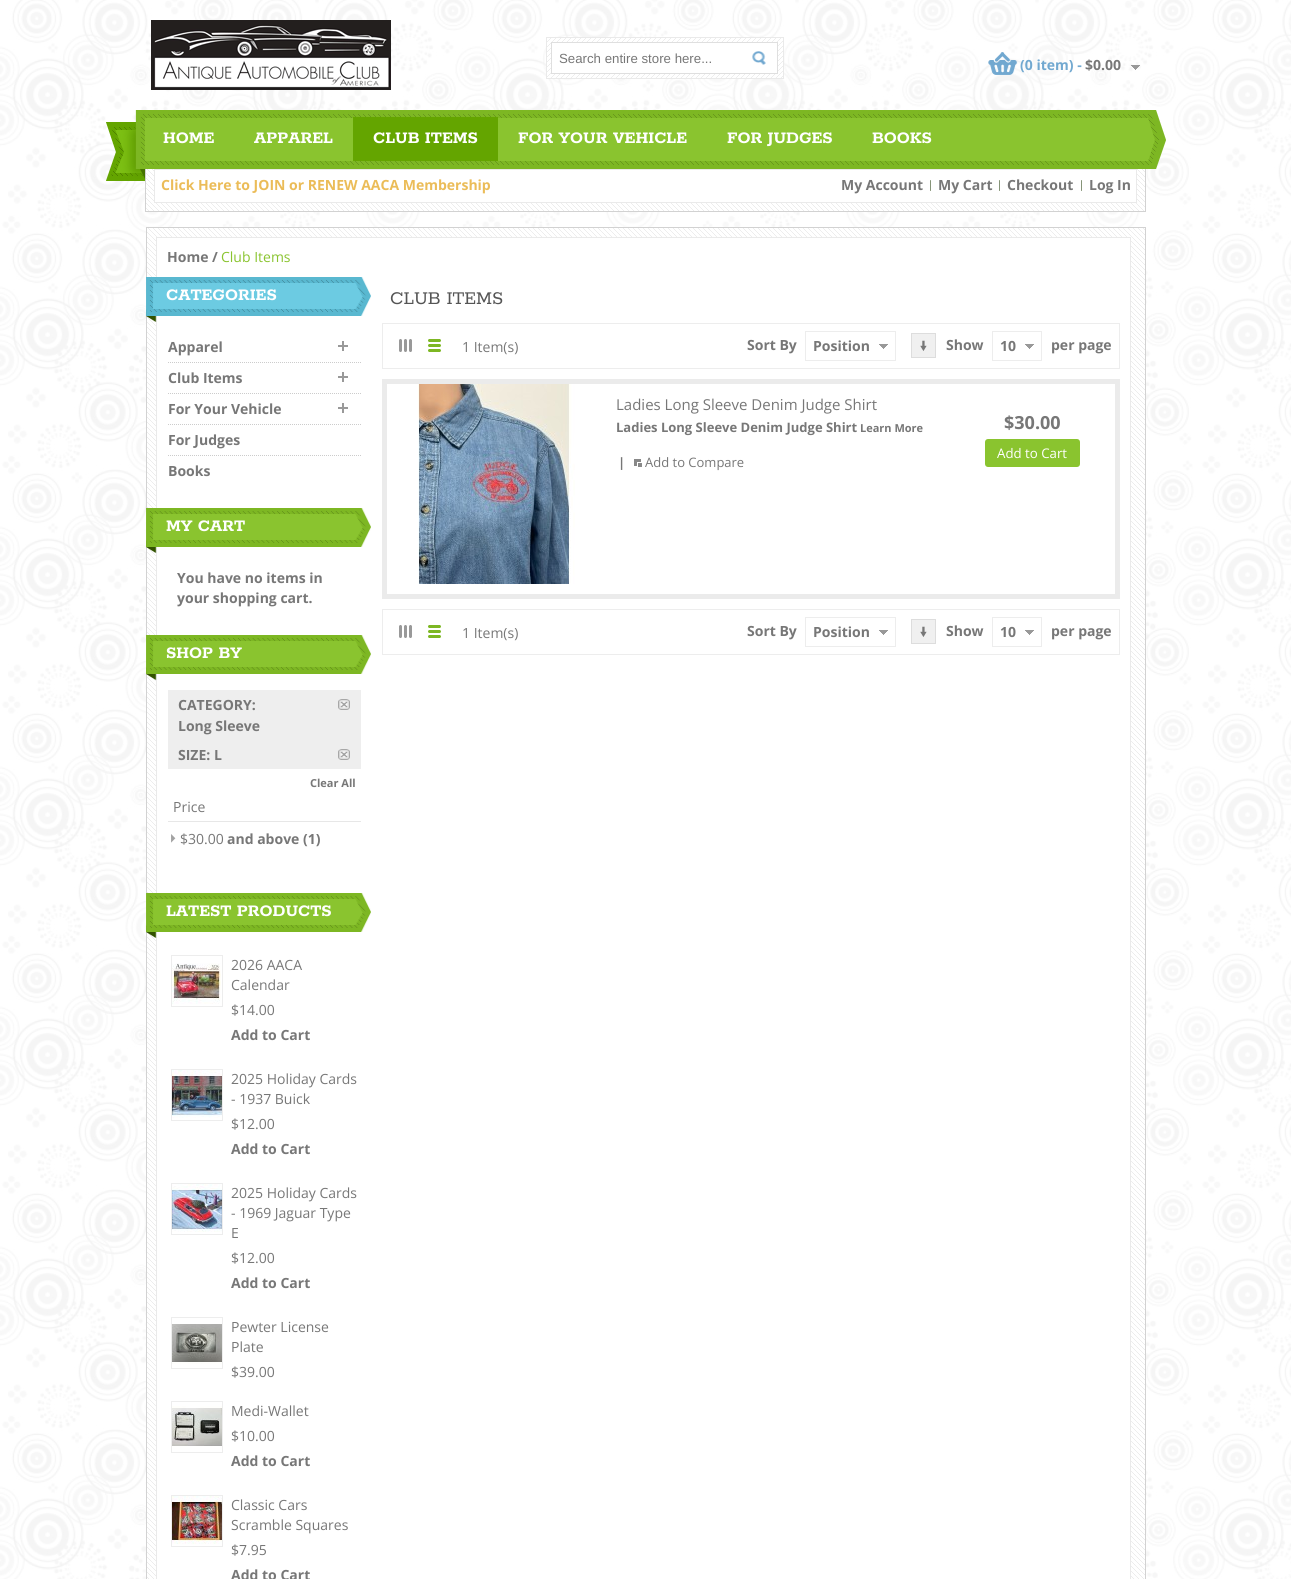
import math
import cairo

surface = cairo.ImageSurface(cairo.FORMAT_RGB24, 1291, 1579)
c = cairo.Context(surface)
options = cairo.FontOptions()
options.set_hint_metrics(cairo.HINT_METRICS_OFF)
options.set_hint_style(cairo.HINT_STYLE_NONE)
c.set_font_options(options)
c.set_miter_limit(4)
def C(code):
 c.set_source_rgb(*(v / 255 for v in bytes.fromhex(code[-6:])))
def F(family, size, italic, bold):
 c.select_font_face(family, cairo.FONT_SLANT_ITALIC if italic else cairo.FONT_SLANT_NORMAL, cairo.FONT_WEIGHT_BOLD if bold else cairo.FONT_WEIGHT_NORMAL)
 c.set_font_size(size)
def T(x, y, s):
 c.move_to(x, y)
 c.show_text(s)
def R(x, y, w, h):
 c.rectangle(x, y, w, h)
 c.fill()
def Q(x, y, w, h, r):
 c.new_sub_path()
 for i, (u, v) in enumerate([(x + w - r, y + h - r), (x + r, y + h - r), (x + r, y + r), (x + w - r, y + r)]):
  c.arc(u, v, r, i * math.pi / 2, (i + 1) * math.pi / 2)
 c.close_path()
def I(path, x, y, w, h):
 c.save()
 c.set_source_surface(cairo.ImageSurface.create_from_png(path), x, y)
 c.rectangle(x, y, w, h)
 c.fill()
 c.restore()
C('ffffff')
c.paint()
I('1.png',0,0,1291,1579)
I('8.png',106,110,1060,71)
I('9.png',146,169,999,42)
C('ffffff')
c.rectangle(154.5,169.5,982,33)
c.fill_preserve()
C('eaeaea')
c.set_line_width(1)
c.stroke()
F('Open Sans',14,0,1)
C('ebbc58')
T(161,190,'Click Here to JOIN or RENEW AACA Membership')
I('2.png',151,20,240,70)
I('3.png',547,38,236,40)
c.rectangle(546.5,37.5,237,41)
C('eaeaea')
c.stroke()
C('ffffff')
R(552,43,196,30)
c.rectangle(551.5,42.5,198,31)
C('dfdfdf')
c.stroke()
F('Liberation Sans',13.25,0,0)
C('777777')
T(559,63,'Search entire store here...')
C('ffffff')
R(748,43,29,30)
I('4.png',752,51,14,14)
C('dfdfdf')
R(748,42,30,1)
R(777,42,1,32)
R(748,73,30,1)
I('5.png',988,52,30,23)
F('Open Sans',14,0,1)
C('71a8d0')
T(1020,70,'(0 item) -')
C('777777')
T(1085,70,'$0.00')
I('6.png',1131,65,9,5)
I('7.png',930,180,1,11)
T(841,190,'My Account')
I('7.png',999,180,1,11)
T(938,190,'My Cart')
I('7.png',1081,180,1,11)
T(1007,190,'Checkout')
T(1089,190,'Log In')
F('Rokkitt',18,0,1)
C('ffffff')
T(163,143,'HOME')
T(254,143,'APPAREL')
C('64a500')
R(353,117,145,44)
C('ffffff')
T(373,143,'CLUB ITEMS')
T(518,143,'FOR YOUR VEHICLE')
T(727,143,'FOR JUDGES')
T(872,143,'BOOKS')
C('d2d2d2')
R(1145,169,1,43)
R(145,211,1001,1)
R(145,169,1,43)
I('10.png',147,228,998,1351)
c.rectangle(146.5,227.5,999,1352)
c.stroke()
C('ffffff')
c.rectangle(156.5,237.5,974,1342)
c.fill_preserve()
C('eaeaea')
c.stroke()
F('Open Sans',14,0,1)
C('777777')
T(167,262,'Home /')
F('Open Sans',14,0,0)
C('8ac42f')
T(221,262,'Club Items')
I('11.png',146,277,225,45)
F('Rokkitt',18,0,1)
C('ffffff')
T(166,300,'CATEGORIES')
c.new_path()
c.move_to(168,362.5)
c.line_to(361,362.5)
C('cccccc')
c.set_dash([1,1])
c.stroke()
F('Open Sans',14,0,1)
C('777777')
T(168,352,'Apparel')
I('12.png',338,341,10,10)
c.new_path()
c.move_to(168,393.5)
c.line_to(361,393.5)
C('cccccc')
c.stroke()
C('777777')
T(168,383,'Club Items')
I('12.png',338,372,10,10)
c.new_path()
c.move_to(168,424.5)
c.line_to(361,424.5)
C('cccccc')
c.stroke()
C('777777')
T(168,414,'For Your Vehicle')
I('12.png',338,403,10,10)
c.new_path()
c.move_to(168,455.5)
c.line_to(361,455.5)
C('cccccc')
c.stroke()
C('777777')
T(168,445,'For Judges')
T(168,476,'Books')
I('13.png',146,508,225,45)
F('Rokkitt',18,0,1)
C('ffffff')
T(166,531,'MY CART')
F('Open Sans',14,0,1)
C('777777')
T(177,583,'You have no items in')
T(177,603,'your shopping cart.')
I('14.png',146,635,225,45)
F('Rokkitt',18,0,1)
C('ffffff')
T(166,658,'SHOP BY')
C('eeeeee')
R(168,690,193,79)
F('Open Sans',14,0,1)
C('777777')
T(178,710,'CATEGORY:')
I('15.png',338,699,12,11)
T(178,731,'Long Sleeve')
T(178,760,'SIZE: L')
I('15.png',338,749,12,11)
F('Open Sans',11,0,1)
T(310,787,'Clear All')
C('e7e7e7')
R(168,821,193,1)
F('Open Sans',14,0,0)
C('777777')
T(173,812,'Price')
I('16.png',171,834,5,9)
T(180,844,'$30.00')
F('Open Sans',14,0,1)
T(227,844,'and above (1)')
I('13.png',146,893,225,45)
F('Rokkitt',18,0,1)
C('ffffff')
T(166,916,'LATEST PRODUCTS')
c.rectangle(171.5,955.5,51,51)
C('ededed')
c.set_dash([])
c.stroke()
I('17.png',172,963,49,41)
F('Open Sans',14,0,0)
C('777777')
T(231,970,'2026 AACA')
T(231,990,'Calendar')
T(231,1015,'$14.00')
F('Open Sans',14,0,1)
T(231,1040,'Add to Cart')
c.rectangle(171.5,1069.5,51,51)
C('ededed')
c.stroke()
I('18.png',172,1070,50,48)
F('Open Sans',14,0,0)
C('777777')
T(231,1084,'2025 Holiday Cards')
T(231,1104,'- 1937 Buick')
T(231,1129,'$12.00')
F('Open Sans',14,0,1)
T(231,1154,'Add to Cart')
c.rectangle(171.5,1183.5,51,51)
C('ededed')
c.stroke()
I('19.png',172,1184,50,48)
F('Open Sans',14,0,0)
C('777777')
T(231,1198,'2025 Holiday Cards')
T(231,1218,'- 1969 Jaguar Type')
T(231,1238,'E')
T(231,1263,'$12.00')
F('Open Sans',14,0,1)
T(231,1288,'Add to Cart')
c.rectangle(171.5,1317.5,51,51)
C('ededed')
c.stroke()
I('20.png',172,1324,50,40)
F('Open Sans',14,0,0)
C('777777')
T(231,1332,'Pewter License')
T(231,1352,'Plate')
T(231,1377,'$39.00')
c.rectangle(171.5,1401.5,51,51)
C('ededed')
c.stroke()
I('21.png',172,1406,50,40)
C('777777')
T(231,1416,'Medi-Wallet')
T(231,1441,'$10.00')
F('Open Sans',14,0,1)
T(231,1466,'Add to Cart')
c.rectangle(171.5,1495.5,51,51)
C('ededed')
c.stroke()
I('22.png',172,1496,50,48)
F('Open Sans',14,0,0)
C('777777')
T(231,1510,'Classic Cars')
T(231,1530,'Scramble Squares')
T(231,1555,'$7.95')
F('Open Sans',14,0,1)
T(231,1580,'Add to Cart')
F('Rokkitt',20,0,0)
C('555555')
T(390,304,'CLUB ITEMS')
c.rectangle(382.5,323.5,737,45)
C('ededed')
c.stroke()
I('23.png',399,339,13,13)
I('24.png',428,339,13,13)
F('Open Sans',14,0,0)
C('777777')
T(462,352,'1 Item(s)')
F('Open Sans',14,0,1)
T(747,350,'Sort By')
c.rectangle(805.5,331.5,90,29)
C('ededed')
c.stroke()
C('777777')
T(813,351,'Position')
I('25.png',879,344,9,5)
C('f0f0f0')
R(912,334,23,23)
I('26.png',920,340,7,11)
c.rectangle(911.5,333.5,24,24)
C('dddddd')
c.stroke()
C('777777')
T(946,350,'Show')
c.rectangle(992.5,331.5,49,29)
C('ededed')
c.stroke()
C('777777')
T(1000,351,'10')
I('25.png',1025,344,9,5)
T(1051,350,'per page')
c.rectangle(384.5,381.5,733,215)
C('ebebeb')
c.set_line_width(5)
c.stroke()
I('27.png',418,384,157,200)
F('Open Sans',15,0,0)
C('777777')
T(616,410,'Ladies Long Sleeve Denim Judge Shirt')
F('Open Sans',13,0,1)
T(616,432,'Ladies Long Sleeve Denim Judge Shirt')
F('Open Sans',11,0,1)
T(860,432,'Learn More')
F('Open Sans',13,0,1)
T(618,467,'|')
I('28.png',634,459,8,8)
F('Open Sans',13,0,0)
T(645,467,'Add to Compare')
F('Open Sans',18,0,1)
T(1004,429,'$30.00')
C('8ac42f')
Q(985,439,95,28,3)
c.fill()
F('Open Sans',13.25,0,0)
C('ffffff')
T(997,458,'Add to Cart')
c.rectangle(382.5,609.5,737,45)
C('ededed')
c.set_line_width(1)
c.stroke()
I('23.png',399,625,13,13)
I('24.png',428,625,13,13)
F('Open Sans',14,0,0)
C('777777')
T(462,638,'1 Item(s)')
F('Open Sans',14,0,1)
T(747,636,'Sort By')
c.rectangle(805.5,617.5,90,29)
C('ededed')
c.stroke()
C('777777')
T(813,637,'Position')
I('25.png',879,630,9,5)
C('f0f0f0')
R(912,620,23,23)
I('26.png',920,626,7,11)
c.rectangle(911.5,619.5,24,24)
C('dddddd')
c.stroke()
C('777777')
T(946,636,'Show')
c.rectangle(992.5,617.5,49,29)
C('ededed')
c.stroke()
C('777777')
T(1000,637,'10')
I('25.png',1025,630,9,5)
T(1051,636,'per page')
surface.write_to_png('o.png')
